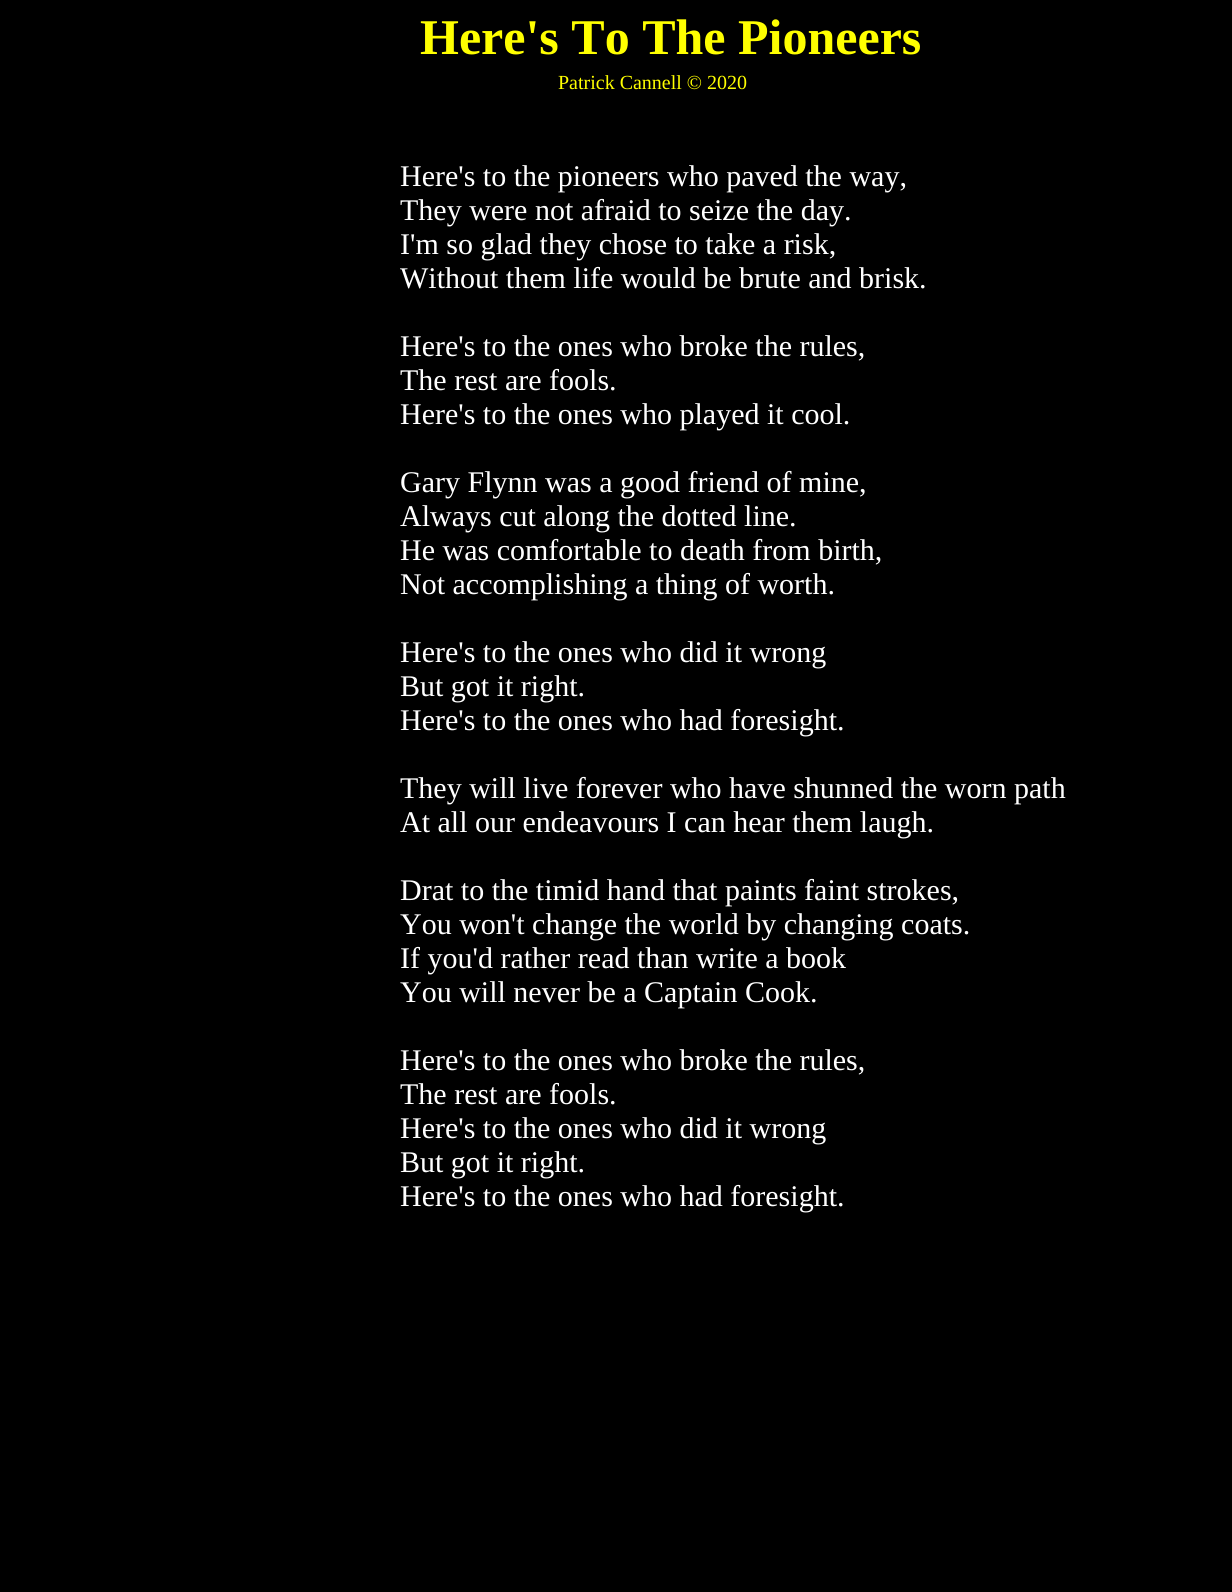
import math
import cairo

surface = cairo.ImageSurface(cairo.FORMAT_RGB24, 1232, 1592)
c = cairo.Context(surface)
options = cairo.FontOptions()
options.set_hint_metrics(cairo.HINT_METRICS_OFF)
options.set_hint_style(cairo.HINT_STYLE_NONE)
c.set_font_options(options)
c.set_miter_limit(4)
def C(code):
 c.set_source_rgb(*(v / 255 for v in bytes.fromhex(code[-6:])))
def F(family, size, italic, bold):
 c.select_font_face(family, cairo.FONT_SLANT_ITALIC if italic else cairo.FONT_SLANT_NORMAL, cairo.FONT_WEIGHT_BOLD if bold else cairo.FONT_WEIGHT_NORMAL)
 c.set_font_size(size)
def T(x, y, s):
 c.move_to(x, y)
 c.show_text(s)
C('000000')
c.paint()
F('Liberation Serif',50,0,1)
C('ffff00')
T(420,54,'Here\'s To The Pioneers')
F('Liberation Serif',20,0,0)
T(558,89,'Patrick Cannell © 2020')
F('Liberation Serif',30,0,0)
C('ffffff')
T(400,186,'Here\'s to the pioneers who paved the way,')
T(400,220,'They were not afraid to seize the day.')
T(400,254,'I\'m so glad they chose to take a risk,')
T(400,288,'Without them life would be brute and brisk.')
T(400,356,'Here\'s to the ones who broke the rules,')
T(400,390,'The rest are fools.')
T(400,424,'Here\'s to the ones who played it cool.')
T(400,492,'Gary Flynn was a good friend of mine,')
T(400,526,'Always cut along the dotted line.')
T(400,560,'He was comfortable to death from birth,')
T(400,594,'Not accomplishing a thing of worth.')
T(400,662,'Here\'s to the ones who did it wrong')
T(400,696,'But got it right.')
T(400,730,'Here\'s to the ones who had foresight.')
T(400,798,'They will live forever who have shunned the worn path')
T(400,832,'At all our endeavours I can hear them laugh.')
T(400,900,'Drat to the timid hand that paints faint strokes,')
T(400,934,'You won\'t change the world by changing coats.')
T(400,968,'If you\'d rather read than write a book')
T(400,1002,'You will never be a Captain Cook.')
T(400,1070,'Here\'s to the ones who broke the rules,')
T(400,1104,'The rest are fools.')
T(400,1138,'Here\'s to the ones who did it wrong')
T(400,1172,'But got it right.')
T(400,1206,'Here\'s to the ones who had foresight.')
surface.write_to_png('o.png')
